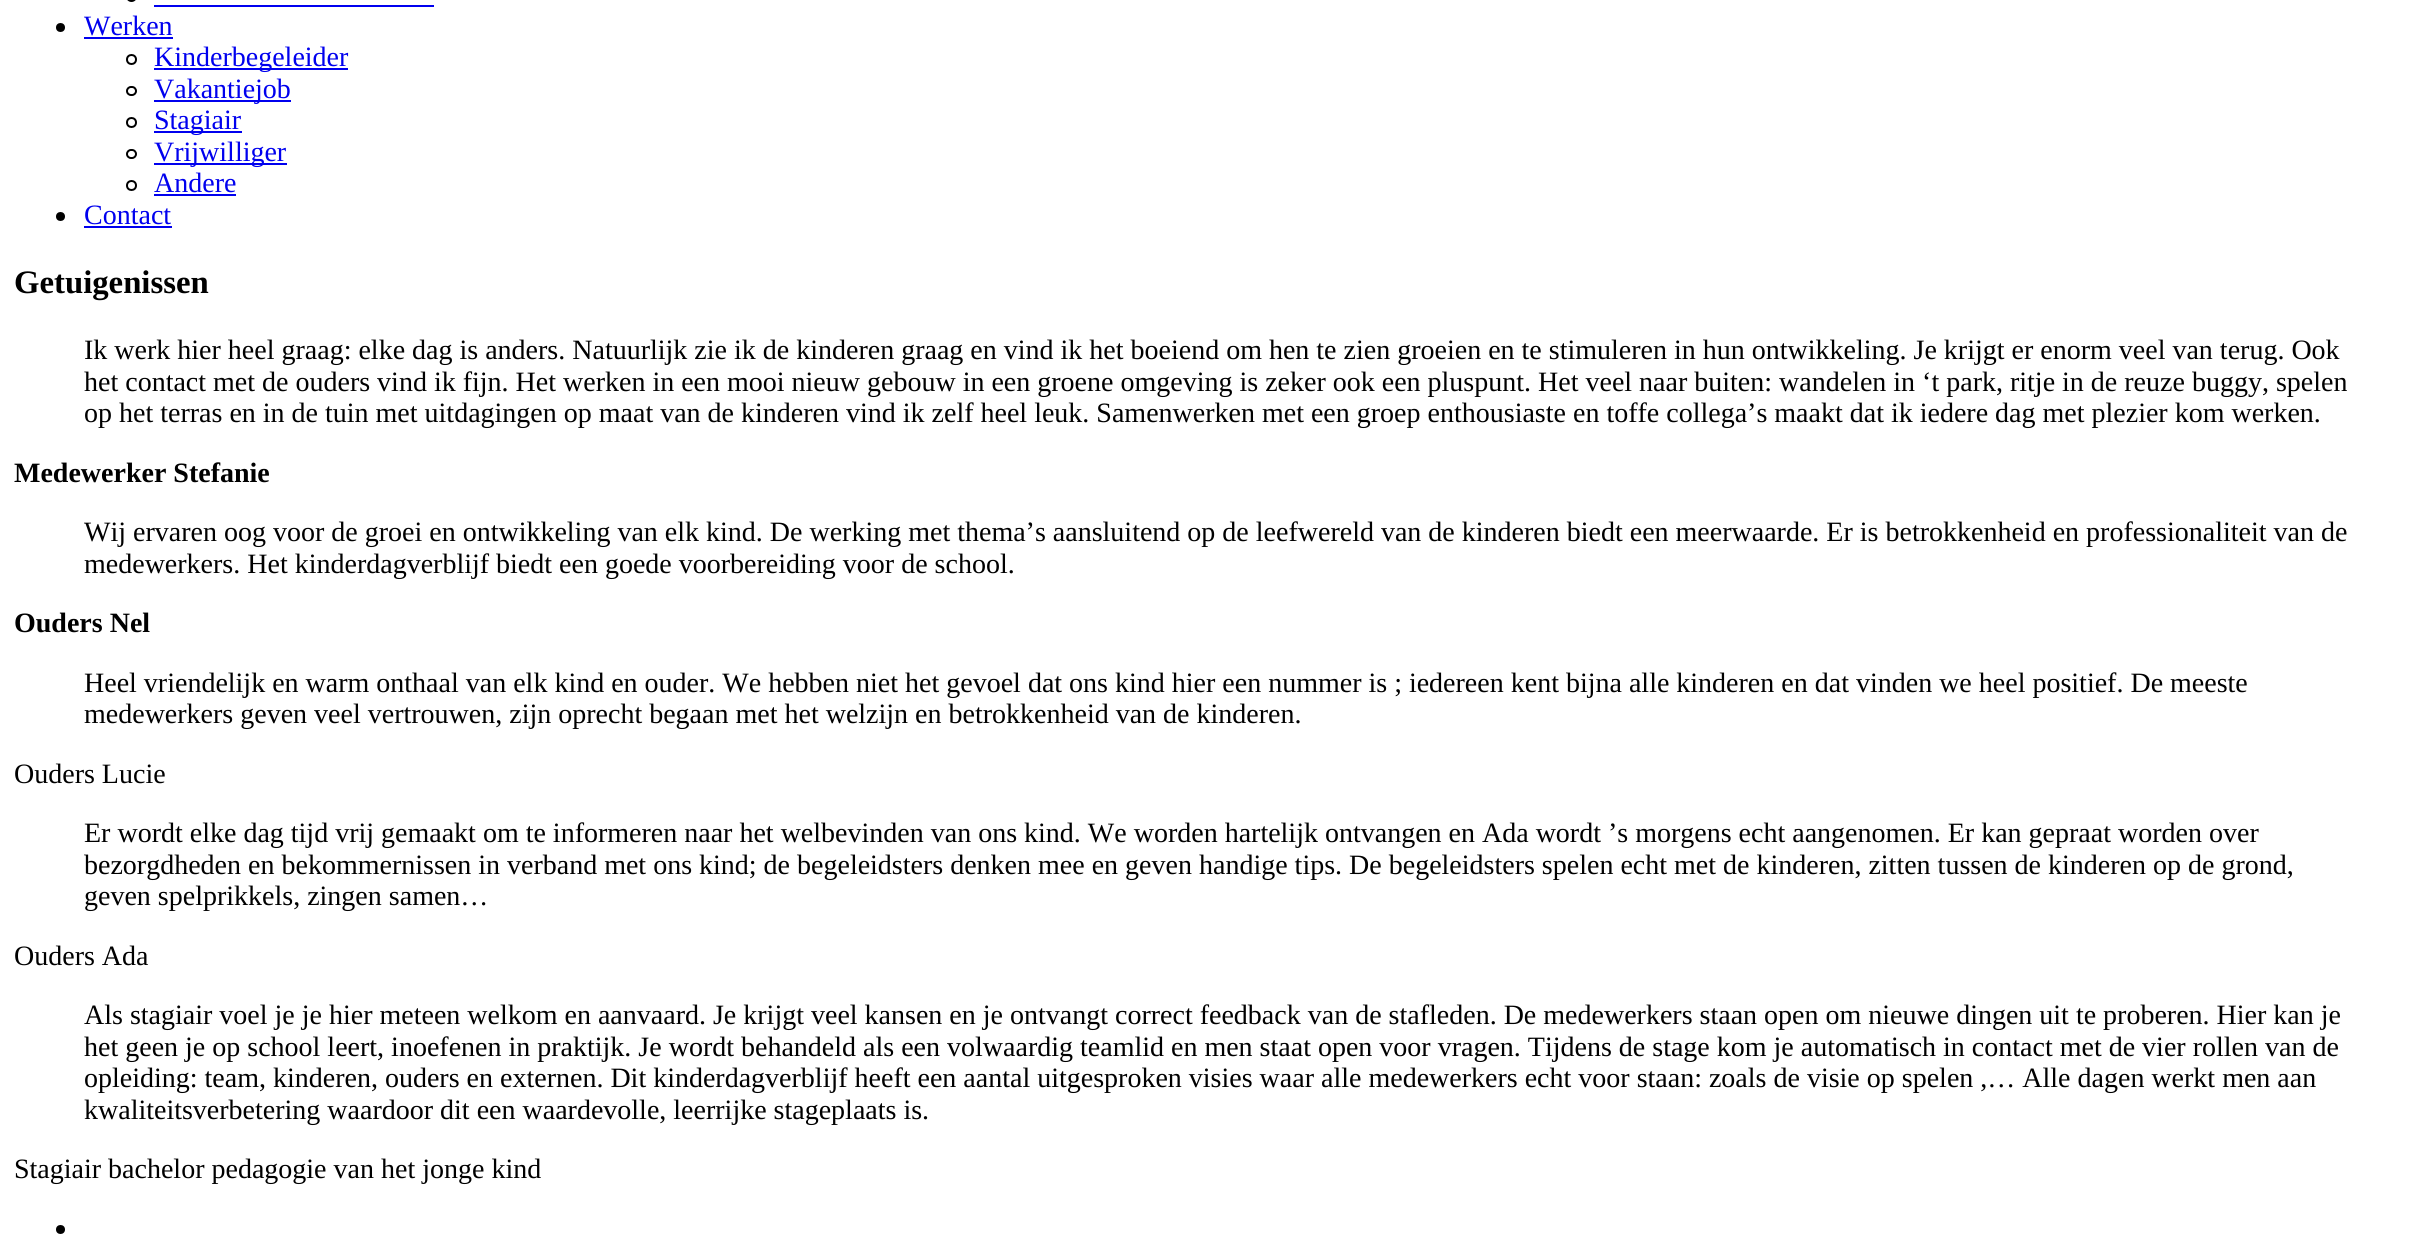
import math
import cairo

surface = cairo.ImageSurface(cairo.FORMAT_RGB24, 2436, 1259)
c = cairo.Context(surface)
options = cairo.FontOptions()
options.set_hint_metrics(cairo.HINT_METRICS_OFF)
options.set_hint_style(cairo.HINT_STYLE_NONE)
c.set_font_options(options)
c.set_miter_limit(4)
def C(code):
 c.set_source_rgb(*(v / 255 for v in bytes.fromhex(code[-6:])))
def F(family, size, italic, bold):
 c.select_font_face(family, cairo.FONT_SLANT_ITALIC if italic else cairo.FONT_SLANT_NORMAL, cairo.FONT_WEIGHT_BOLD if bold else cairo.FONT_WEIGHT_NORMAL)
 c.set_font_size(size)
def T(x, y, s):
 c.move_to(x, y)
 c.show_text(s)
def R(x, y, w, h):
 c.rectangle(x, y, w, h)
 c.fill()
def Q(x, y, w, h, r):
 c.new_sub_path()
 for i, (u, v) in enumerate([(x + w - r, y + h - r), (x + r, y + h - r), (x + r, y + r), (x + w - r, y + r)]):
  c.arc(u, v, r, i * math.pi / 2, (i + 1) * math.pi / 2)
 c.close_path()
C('ffffff')
c.paint()
Q(127,-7,9,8,4.5)
C('000000')
c.stroke()
C('0000ee')
R(154,5,280,2)
C('000000')
c.arc(60.5,27.5,4.5,0,2 * math.pi)
c.fill()
F('Liberation Serif',28,0,0)
C('0000ee')
T(84,35,'Werken')
R(84,37,89,2)
c.new_path()
c.arc(131.5,59.5,4.5,0,2 * math.pi)
C('000000')
c.stroke()
C('0000ee')
R(154,68,194,2)
T(154,66,'Kinderbegeleider')
Q(127,87,9,8,4)
C('000000')
c.stroke()
C('0000ee')
R(154,100,137,2)
T(154,98,'Vakantiejob')
c.new_path()
c.arc(131.5,122.5,4.5,0,2 * math.pi)
C('000000')
c.stroke()
C('0000ee')
R(154,131,88,2)
T(154,129,'Stagiair')
Q(127,150,9,8,4)
C('000000')
c.stroke()
C('0000ee')
R(154,163,133,2)
T(154,161,'Vrijwilliger')
c.new_path()
c.arc(131.5,185.5,4.5,0,2 * math.pi)
C('000000')
c.stroke()
C('0000ee')
T(154,192,'Andere')
R(154,194,82,2)
C('000000')
c.new_path()
c.arc(60.5,216.5,4.5,0,2 * math.pi)
c.fill()
C('0000ee')
T(84,224,'Contact')
R(84,226,88,2)
F('Liberation Serif',32.75,0,1)
C('000000')
T(14,293,'Getuigenissen')
F('Liberation Serif',28,0,0)
T(84,359,'Ik werk hier heel graag: elke dag is anders. Natuurlijk zie ik de kinderen graag en vind ik het boeiend om hen te zien groeien en te stimuleren in hun ontwikkeling. Je krijgt er enorm veel van terug. Ook')
T(84,391,'het contact met de ouders vind ik fijn. Het werken in een mooi nieuw gebouw in een groene omgeving is zeker ook een pluspunt. Het veel naar buiten: wandelen in ‘t park, ritje in de reuze buggy, spelen')
T(84,422,'op het terras en in de tuin met uitdagingen op maat van de kinderen vind ik zelf heel leuk. Samenwerken met een groep enthousiaste en toffe collega’s maakt dat ik iedere dag met plezier kom werken.')
F('Liberation Serif',28,0,1)
T(14,482,'Medewerker Stefanie')
F('Liberation Serif',28,0,0)
T(84,541,'Wij ervaren oog voor de groei en ontwikkeling van elk kind. De werking met thema’s aansluitend op de leefwereld van de kinderen biedt een meerwaarde. Er is betrokkenheid en professionaliteit van de')
T(84,573,'medewerkers. Het kinderdagverblijf biedt een goede voorbereiding voor de school.')
F('Liberation Serif',28,0,1)
T(14,632,'Ouders Nel')
F('Liberation Serif',28,0,0)
T(84,692,'Heel vriendelijk en warm onthaal van elk kind en ouder. We hebben niet het gevoel dat ons kind hier een nummer is ; iedereen kent bijna alle kinderen en dat vinden we heel positief. De meeste')
T(84,723,'medewerkers geven veel vertrouwen, zijn oprecht begaan met het welzijn en betrokkenheid van de kinderen.')
T(14,783,'Ouders Lucie')
T(84,842,'Er wordt elke dag tijd vrij gemaakt om te informeren naar het welbevinden van ons kind. We worden hartelijk ontvangen en Ada wordt ’s morgens echt aangenomen. Er kan gepraat worden over')
T(84,874,'bezorgdheden en bekommernissen in verband met ons kind; de begeleidsters denken mee en geven handige tips. De begeleidsters spelen echt met de kinderen, zitten tussen de kinderen op de grond,')
T(84,905,'geven spelprikkels, zingen samen…')
T(14,965,'Ouders Ada')
T(84,1024,'Als stagiair voel je je hier meteen welkom en aanvaard. Je krijgt veel kansen en je ontvangt correct feedback van de stafleden. De medewerkers staan open om nieuwe dingen uit te proberen. Hier kan je')
T(84,1056,'het geen je op school leert, inoefenen in praktijk. Je wordt behandeld als een volwaardig teamlid en men staat open voor vragen. Tijdens de stage kom je automatisch in contact met de vier rollen van de')
T(84,1087,'opleiding: team, kinderen, ouders en externen. Dit kinderdagverblijf heeft een aantal uitgesproken visies waar alle medewerkers echt voor staan: zoals de visie op spelen ,… Alle dagen werkt men aan')
T(84,1119,'kwaliteitsverbetering waardoor dit een waardevolle, leerrijke stageplaats is.')
T(14,1178,'Stagiair bachelor pedagogie van het jonge kind')
c.new_path()
c.arc(60.5,1229.5,4.5,0,2 * math.pi)
c.fill()
surface.write_to_png('o.png')
